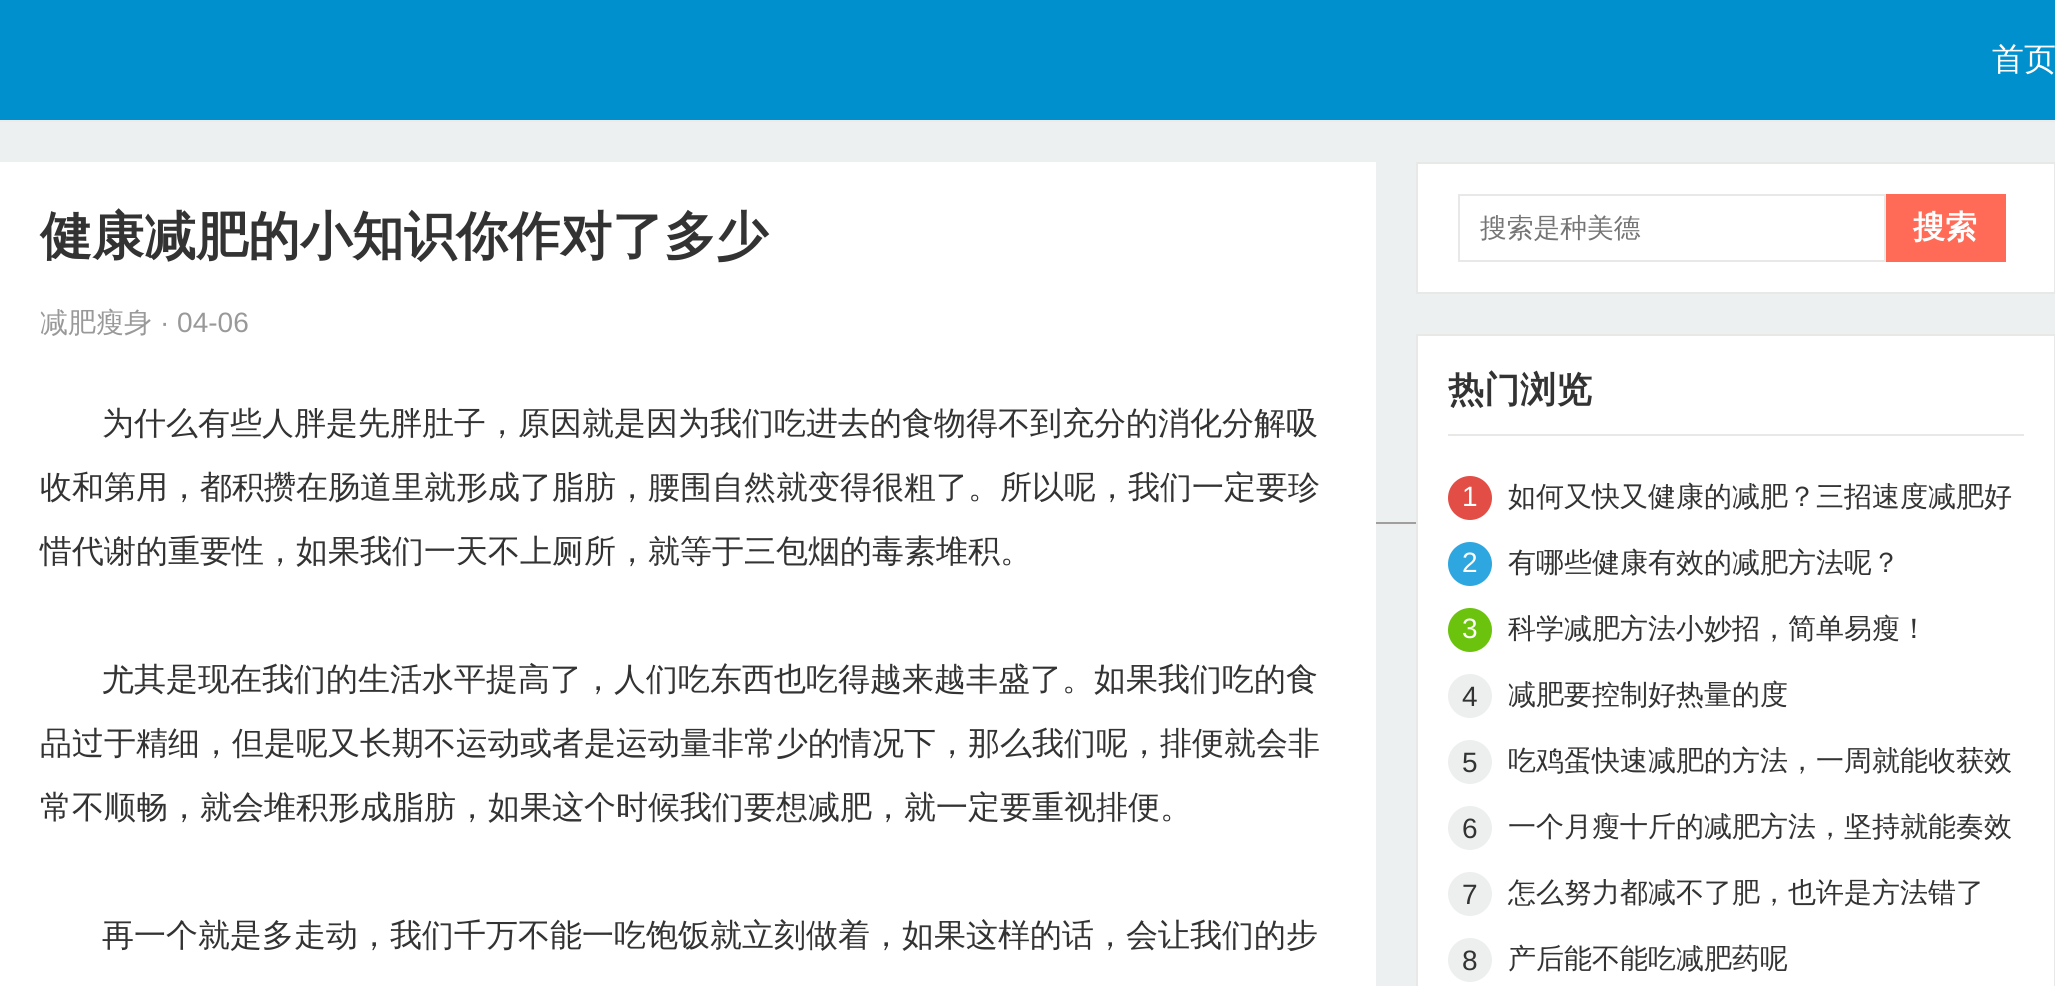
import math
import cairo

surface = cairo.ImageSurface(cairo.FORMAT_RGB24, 2055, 986)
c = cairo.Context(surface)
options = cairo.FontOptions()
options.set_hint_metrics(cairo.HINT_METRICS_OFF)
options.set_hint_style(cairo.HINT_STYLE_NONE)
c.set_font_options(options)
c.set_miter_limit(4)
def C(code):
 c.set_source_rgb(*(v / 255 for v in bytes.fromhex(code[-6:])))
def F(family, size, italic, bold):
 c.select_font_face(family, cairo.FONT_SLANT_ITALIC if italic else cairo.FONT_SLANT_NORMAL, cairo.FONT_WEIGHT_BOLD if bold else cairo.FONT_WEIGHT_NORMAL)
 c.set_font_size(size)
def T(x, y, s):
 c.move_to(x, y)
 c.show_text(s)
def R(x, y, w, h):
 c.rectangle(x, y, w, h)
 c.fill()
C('ecf0f1')
c.paint()
C('0090ce')
R(0,0,2055,120)
C('ebebeb')
R(0,120,2055,2)
F('WenQuanYi Zen Hei Medium',32,0,0)
C('ffffff')
T(1992,70,'首页')
C('9f9f9f')
R(1376,522,40,2)
C('eeeeee')
R(1376,524,40,2)
C('ffffff')
R(0,162,1376,824)
F('WenQuanYi Zen Hei',52,0,1)
C('333333')
T(40,254,'健康减肥的小知识你作对了多少')
F('WenQuanYi Zen Hei Medium',28,0,0)
C('999999')
T(40,332,'减肥瘦身')
F('Liberation Sans',28,0,0)
T(160,332,'· 04-06')
F('WenQuanYi Zen Hei Medium',32,0,0)
C('333333')
T(102,434,'为什么有些人胖是先胖肚子，原因就是因为我们吃进去的食物得不到充分的消化分解吸')
T(40,498,'收和第用，都积攒在肠道里就形成了脂肪，腰围自然就变得很粗了。所以呢，我们一定要珍')
T(40,562,'惜代谢的重要性，如果我们一天不上厕所，就等于三包烟的毒素堆积。')
T(102,690,'尤其是现在我们的生活水平提高了，人们吃东西也吃得越来越丰盛了。如果我们吃的食')
T(40,754,'品过于精细，但是呢又长期不运动或者是运动量非常少的情况下，那么我们呢，排便就会非')
T(40,818,'常不顺畅，就会堆积形成脂肪，如果这个时候我们要想减肥，就一定要重视排便。')
T(102,946,'再一个就是多走动，我们千万不能一吃饱饭就立刻做着，如果这样的话，会让我们的步')
C('ffffff')
c.rectangle(1417,163,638,130)
c.fill_preserve()
C('e8e9e7')
c.stroke()
c.rectangle(1459,195,426,66)
c.stroke()
F('WenQuanYi Zen Hei Medium',26.75,0,0)
C('757575')
T(1480,237,'搜索是种美德')
C('ff6b57')
R(1886,194,120,68)
F('WenQuanYi Zen Hei',32,0,1)
C('ffffff')
T(1913,238,'搜索')
c.rectangle(1417,335,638,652)
c.fill_preserve()
C('e8e9e7')
c.stroke()
R(1448,434,576,2)
F('WenQuanYi Zen Hei',36,0,1)
C('333333')
T(1448,402,'热门浏览')
C('e24d46')
c.new_path()
c.arc(1470,498,22,0,2 * math.pi)
c.fill()
F('Liberation Sans',28,0,0)
C('ffffff')
T(1462,506,'1')
F('WenQuanYi Zen Hei Medium',28,0,0)
C('333333')
T(1508,506,'如何又快又健康的减肥？三招速度减肥好')
C('2ea7e0')
c.new_path()
c.arc(1470,564,22,0,2 * math.pi)
c.fill()
F('Liberation Sans',28,0,0)
C('ffffff')
T(1462,572,'2')
F('WenQuanYi Zen Hei Medium',28,0,0)
C('333333')
T(1508,572,'有哪些健康有效的减肥方法呢？')
C('6bc30d')
c.new_path()
c.arc(1470,630,22,0,2 * math.pi)
c.fill()
F('Liberation Sans',28,0,0)
C('ffffff')
T(1462,638,'3')
F('WenQuanYi Zen Hei Medium',28,0,0)
C('333333')
T(1508,638,'科学减肥方法小妙招，简单易瘦！')
C('edefee')
c.new_path()
c.arc(1470,696,22,0,2 * math.pi)
c.fill()
F('Liberation Sans',28,0,0)
C('333333')
T(1462,706,'4')
F('WenQuanYi Zen Hei Medium',28,0,0)
T(1508,704,'减肥要控制好热量的度')
C('edefee')
c.new_path()
c.arc(1470,762,22,0,2 * math.pi)
c.fill()
F('Liberation Sans',28,0,0)
C('333333')
T(1462,772,'5')
F('WenQuanYi Zen Hei Medium',28,0,0)
T(1508,770,'吃鸡蛋快速减肥的方法，一周就能收获效')
C('edefee')
c.new_path()
c.arc(1470,828,22,0,2 * math.pi)
c.fill()
F('Liberation Sans',28,0,0)
C('333333')
T(1462,838,'6')
F('WenQuanYi Zen Hei Medium',28,0,0)
T(1508,836,'一个月瘦十斤的减肥方法，坚持就能奏效')
C('edefee')
c.new_path()
c.arc(1470,894,22,0,2 * math.pi)
c.fill()
F('Liberation Sans',28,0,0)
C('333333')
T(1462,904,'7')
F('WenQuanYi Zen Hei Medium',28,0,0)
T(1508,902,'怎么努力都减不了肥，也许是方法错了')
C('edefee')
c.new_path()
c.arc(1470,960,22,0,2 * math.pi)
c.fill()
F('Liberation Sans',28,0,0)
C('333333')
T(1462,970,'8')
F('WenQuanYi Zen Hei Medium',28,0,0)
T(1508,968,'产后能不能吃减肥药呢')
surface.write_to_png('o.png')
